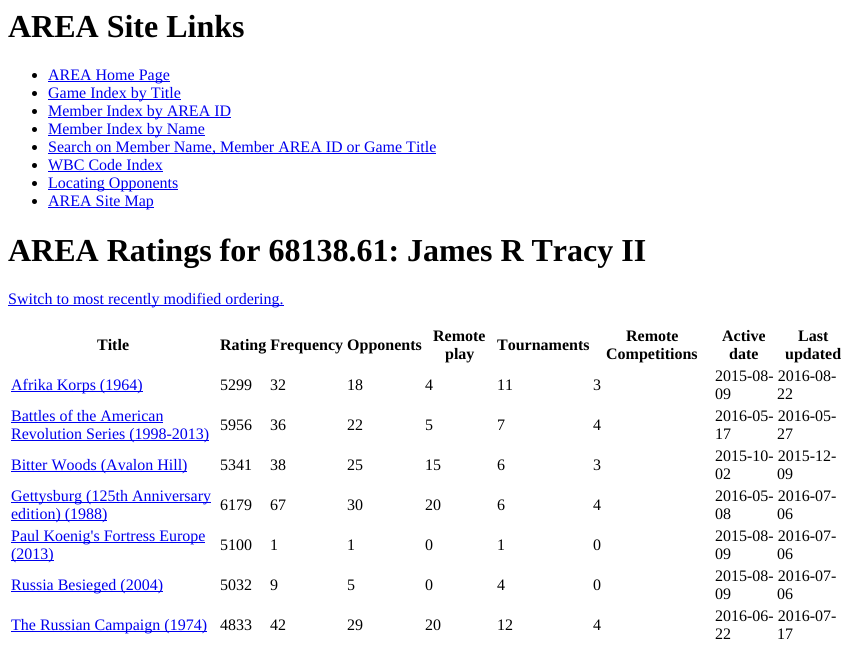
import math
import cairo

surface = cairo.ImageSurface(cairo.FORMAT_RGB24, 860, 656)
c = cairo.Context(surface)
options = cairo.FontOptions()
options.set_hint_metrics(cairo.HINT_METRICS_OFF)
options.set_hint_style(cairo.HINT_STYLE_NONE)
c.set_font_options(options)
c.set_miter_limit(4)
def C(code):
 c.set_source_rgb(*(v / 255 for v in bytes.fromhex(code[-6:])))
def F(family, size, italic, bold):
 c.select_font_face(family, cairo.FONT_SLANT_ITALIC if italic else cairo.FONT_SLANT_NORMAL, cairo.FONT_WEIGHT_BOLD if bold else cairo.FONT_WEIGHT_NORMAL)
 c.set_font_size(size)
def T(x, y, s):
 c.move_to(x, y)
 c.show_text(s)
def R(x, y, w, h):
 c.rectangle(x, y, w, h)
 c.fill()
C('ffffff')
c.paint()
F('Liberation Serif',32,0,1)
C('000000')
T(8,37,'AREA Site Links')
c.new_path()
c.arc(34.5,75.5,2.5,0,2 * math.pi)
c.fill()
C('0000ee')
R(48,81,122,1)
F('Liberation Serif',16,0,0)
T(48,80,'AREA Home Page')
C('000000')
c.new_path()
c.arc(34.5,93.5,2.5,0,2 * math.pi)
c.fill()
C('0000ee')
R(48,99,133,1)
T(48,98,'Game Index by Title')
C('000000')
c.new_path()
c.arc(34.5,111.5,2.5,0,2 * math.pi)
c.fill()
C('0000ee')
R(48,117,183,1)
T(48,116,'Member Index by AREA ID')
C('000000')
c.new_path()
c.arc(34.5,129.5,2.5,0,2 * math.pi)
c.fill()
C('0000ee')
R(48,135,157,1)
T(48,134,'Member Index by Name')
C('000000')
c.new_path()
c.arc(34.5,147.5,2.5,0,2 * math.pi)
c.fill()
C('0000ee')
R(48,153,388,1)
T(48,152,'Search on Member Name, Member AREA ID or Game Title')
C('000000')
c.new_path()
c.arc(34.5,165.5,2.5,0,2 * math.pi)
c.fill()
C('0000ee')
T(48,170,'WBC Code Index')
R(48,171,115,1)
C('000000')
c.new_path()
c.arc(34.5,183.5,2.5,0,2 * math.pi)
c.fill()
C('0000ee')
R(48,189,130,1)
T(48,188,'Locating Opponents')
C('000000')
c.new_path()
c.arc(34.5,201.5,2.5,0,2 * math.pi)
c.fill()
C('0000ee')
R(48,207,106,1)
T(48,206,'AREA Site Map')
F('Liberation Serif',32,0,1)
C('000000')
T(8,261,'AREA Ratings for 68138.61: James R Tracy II')
C('0000ee')
R(8,305,276,1)
F('Liberation Serif',16,0,0)
T(8,304,'Switch to most recently modified ordering.')
F('Liberation Serif',16,0,1)
C('000000')
T(97,350,'Title')
T(220,350,'Rating Frequency Opponents')
T(433,341,'Remote')
T(445,359,'play')
T(497,350,'Tournaments')
T(626,341,'Remote')
T(606,359,'Competitions')
T(722,341,'Active')
T(729,359,'date')
T(798,341,'Last')
T(785,359,'updated')
C('0000ee')
R(11,391,132,1)
F('Liberation Serif',16,0,0)
T(11,390,'Afrika Korps (1964)')
C('000000')
T(220,390,'5299')
T(270,390,'32')
T(347,390,'18')
T(425,390,'4')
T(497,390,'11')
T(593,390,'3')
T(715,381,'2015-08- 2016-08-')
T(715,399,'09')
T(777,399,'22')
C('0000ee')
T(11,421,'Battles of the American')
R(11,422,152,1)
R(11,440,198,1)
T(11,439,'Revolution Series (1998-2013)')
C('000000')
T(220,430,'5956')
T(270,430,'36')
T(347,430,'22')
T(425,430,'5')
T(497,430,'7')
T(593,430,'4')
T(715,421,'2016-05- 2016-05-')
T(715,439,'17')
T(777,439,'27')
C('0000ee')
R(11,471,176,1)
T(11,470,'Bitter Woods (Avalon Hill)')
C('000000')
T(220,470,'5341')
T(270,470,'38')
T(347,470,'25')
T(425,470,'15')
T(497,470,'6')
T(593,470,'3')
T(715,461,'2015-10- 2015-12-')
T(715,479,'02')
T(777,479,'09')
C('0000ee')
R(11,502,200,1)
T(11,501,'Gettysburg (125th Anniversary')
R(11,520,96,1)
T(11,519,'edition) (1988)')
C('000000')
T(220,510,'6179')
T(270,510,'67')
T(347,510,'30')
T(425,510,'20')
T(497,510,'6')
T(593,510,'4')
T(715,501,'2016-05- 2016-07-')
T(715,519,'08')
T(777,519,'06')
C('0000ee')
R(11,542,194,1)
T(11,541,'Paul Koenig\'s Fortress Europe')
R(11,560,43,1)
T(11,559,'(2013)')
C('000000')
T(220,550,'5100')
T(270,550,'1')
T(347,550,'1')
T(425,550,'0')
T(497,550,'1')
T(593,550,'0')
T(715,541,'2015-08- 2016-07-')
T(715,559,'09')
T(777,559,'06')
C('0000ee')
R(11,591,152,1)
T(11,590,'Russia Besieged (2004)')
C('000000')
T(220,590,'5032')
T(270,590,'9')
T(347,590,'5')
T(425,590,'0')
T(497,590,'4')
T(593,590,'0')
T(715,581,'2015-08- 2016-07-')
T(715,599,'09')
T(777,599,'06')
C('0000ee')
R(11,631,196,1)
T(11,630,'The Russian Campaign (1974)')
C('000000')
T(220,630,'4833')
T(270,630,'42')
T(347,630,'29')
T(425,630,'20')
T(497,630,'12')
T(593,630,'4')
T(715,621,'2016-06- 2016-07-')
T(715,639,'22')
T(777,639,'17')
surface.write_to_png('o.png')
